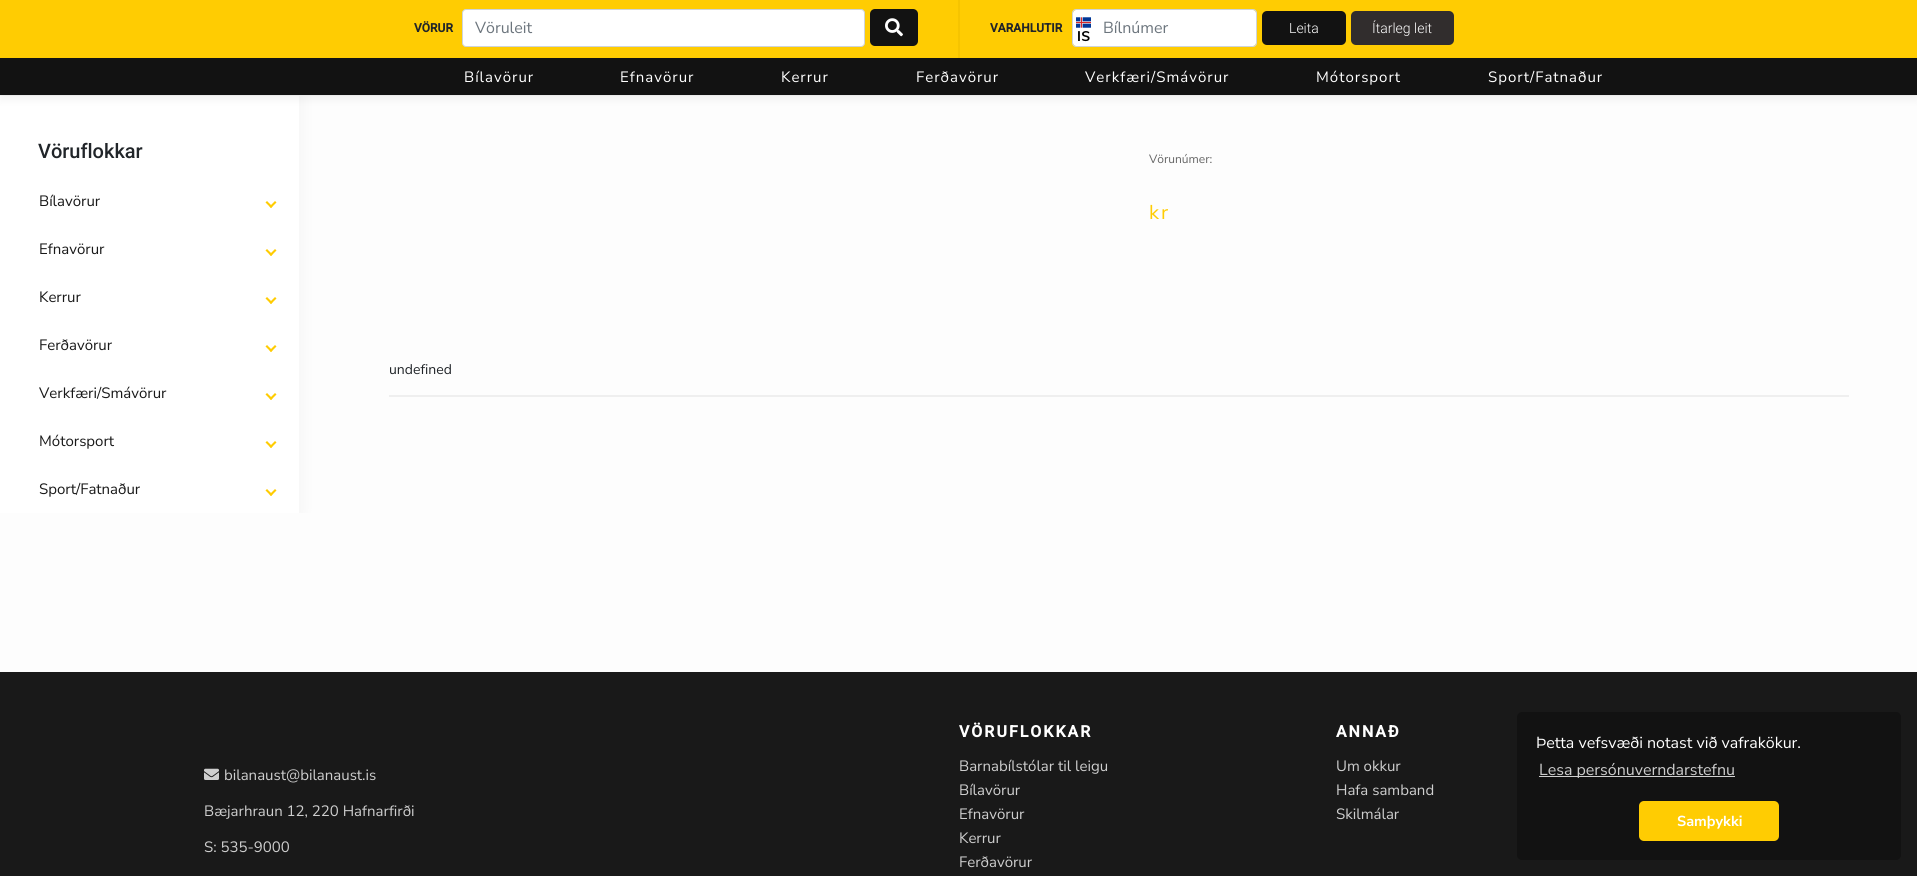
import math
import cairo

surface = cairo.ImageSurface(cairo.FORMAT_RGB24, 1917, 876)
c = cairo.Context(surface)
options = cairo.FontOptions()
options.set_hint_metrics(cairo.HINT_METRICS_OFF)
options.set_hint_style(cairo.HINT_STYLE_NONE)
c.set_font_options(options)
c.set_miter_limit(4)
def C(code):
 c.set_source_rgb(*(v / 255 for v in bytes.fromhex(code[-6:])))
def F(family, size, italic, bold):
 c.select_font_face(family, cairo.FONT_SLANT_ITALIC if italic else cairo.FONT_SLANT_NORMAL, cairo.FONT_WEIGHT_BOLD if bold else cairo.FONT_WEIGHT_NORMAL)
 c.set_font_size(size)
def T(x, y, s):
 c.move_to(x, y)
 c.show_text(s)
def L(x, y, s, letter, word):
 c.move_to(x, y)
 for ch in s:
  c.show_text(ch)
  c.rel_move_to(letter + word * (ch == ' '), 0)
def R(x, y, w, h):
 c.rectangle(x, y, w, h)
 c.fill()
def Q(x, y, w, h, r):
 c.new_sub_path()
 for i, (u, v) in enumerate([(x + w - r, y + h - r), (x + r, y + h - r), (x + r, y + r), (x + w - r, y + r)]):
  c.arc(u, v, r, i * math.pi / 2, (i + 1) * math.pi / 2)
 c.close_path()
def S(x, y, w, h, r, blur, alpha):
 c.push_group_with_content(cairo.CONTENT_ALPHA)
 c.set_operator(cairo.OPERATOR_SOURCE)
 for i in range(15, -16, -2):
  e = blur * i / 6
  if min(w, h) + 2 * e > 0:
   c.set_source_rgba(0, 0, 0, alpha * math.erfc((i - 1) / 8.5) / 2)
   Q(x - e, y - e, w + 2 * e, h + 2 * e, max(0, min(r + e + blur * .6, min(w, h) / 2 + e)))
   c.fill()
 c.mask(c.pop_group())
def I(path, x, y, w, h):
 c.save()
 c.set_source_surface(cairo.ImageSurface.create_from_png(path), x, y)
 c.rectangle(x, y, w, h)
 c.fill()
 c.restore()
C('fdfdfd')
c.paint()
C('ffcc02')
R(0,0,1917,58)
C('f6c400')
R(958,0,2,58)
F('Roboto',12,0,1)
C('212529')
T(414,32,'VÖRUR')
C('ffffff')
Q(462.5,9.5,402,37,3.5)
c.fill_preserve()
C('ced4da')
c.set_line_width(1)
c.stroke()
F('Nunito Sans',16,0,0)
C('6c757d')
T(475,33,'Vöruleit')
C('121212')
Q(870,9,48,37,5)
c.fill()
I('1.png',885,18,18,19)
F('Roboto',12,0,1)
C('212529')
T(990,32,'VARAHLUTIR')
C('ffffff')
Q(1073,10,183,36,3)
c.fill()
I('2.png',1076,17,15,25)
Q(1072.5,9.5,184,37,3.5)
C('ced4da')
c.stroke()
F('Nunito Sans',16,0,0)
C('6c757d')
T(1103,33,'Bílnúmer')
C('121212')
Q(1262,11,84,34,5)
c.fill()
F('Roboto Light',14,0,0)
C('ffffff')
T(1289,33,'Leita')
C('312d2d')
Q(1351,11,103,34,5)
c.fill()
C('ffffff')
T(1372,33,'Ítarleg leit')
C('f5f5f5')
R(0,95,1917,1)
c.save()
c.rectangle(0,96,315,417)
c.clip()
C('dbdbdb')
S(0,96,300,417,0,7.5,.3)
c.restore()
C('ffffff')
R(0,96,299,417)
C('000000')
S(0,63,1917,37,0,4,.05)
C('121212')
R(0,58,1917,37)
F('Nunito Sans',15,0,0)
C('ffffff')
L(464,82,'Bílavörur',1,0)
L(620,82,'Efnavörur',1,0)
L(781,82,'Kerrur',1,0)
L(916,82,'Ferðavörur',1,0)
L(1085,82,'Verkfæri/Smávörur',1,0)
L(1316,82,'Mótorsport',1,0)
L(1488,82,'Sport/Fatnaður',1,0)
F('Roboto Medium',20,0,0)
C('212529')
T(38,158,'Vöruflokkar')
F('Nunito Sans',15,0,0)
C('191919')
T(39,206,'Bílavörur')
C('ffcc02')
c.new_path()
c.move_to(275,201)
c.line_to(276.5,202.5)
c.line_to(271,208)
c.line_to(269.5,206.5)
c.close_path()
c.fill()
c.new_path()
c.move_to(267,201)
c.line_to(272.5,206.5)
c.line_to(271,208)
c.line_to(265.5,202.5)
c.close_path()
c.fill()
C('191919')
T(39,254,'Efnavörur')
C('ffcc02')
c.new_path()
c.move_to(275,249)
c.line_to(276.5,250.5)
c.line_to(271,256)
c.line_to(269.5,254.5)
c.close_path()
c.fill()
c.new_path()
c.move_to(267,249)
c.line_to(272.5,254.5)
c.line_to(271,256)
c.line_to(265.5,250.5)
c.close_path()
c.fill()
C('191919')
T(39,302,'Kerrur')
C('ffcc02')
c.new_path()
c.move_to(275,297)
c.line_to(276.5,298.5)
c.line_to(271,304)
c.line_to(269.5,302.5)
c.close_path()
c.fill()
c.new_path()
c.move_to(267,297)
c.line_to(272.5,302.5)
c.line_to(271,304)
c.line_to(265.5,298.5)
c.close_path()
c.fill()
C('191919')
T(39,350,'Ferðavörur')
C('ffcc02')
c.new_path()
c.move_to(275,345)
c.line_to(276.5,346.5)
c.line_to(271,352)
c.line_to(269.5,350.5)
c.close_path()
c.fill()
c.new_path()
c.move_to(267,345)
c.line_to(272.5,350.5)
c.line_to(271,352)
c.line_to(265.5,346.5)
c.close_path()
c.fill()
C('191919')
T(39,398,'Verkfæri/Smávörur')
C('ffcc02')
c.new_path()
c.move_to(275,393)
c.line_to(276.5,394.5)
c.line_to(271,400)
c.line_to(269.5,398.5)
c.close_path()
c.fill()
c.new_path()
c.move_to(267,393)
c.line_to(272.5,398.5)
c.line_to(271,400)
c.line_to(265.5,394.5)
c.close_path()
c.fill()
C('191919')
T(39,446,'Mótorsport')
C('ffcc02')
c.new_path()
c.move_to(275,441)
c.line_to(276.5,442.5)
c.line_to(271,448)
c.line_to(269.5,446.5)
c.close_path()
c.fill()
c.new_path()
c.move_to(267,441)
c.line_to(272.5,446.5)
c.line_to(271,448)
c.line_to(265.5,442.5)
c.close_path()
c.fill()
C('191919')
T(39,494,'Sport/Fatnaður')
C('ffcc02')
c.new_path()
c.move_to(275,489)
c.line_to(276.5,490.5)
c.line_to(271,496)
c.line_to(269.5,494.5)
c.close_path()
c.fill()
c.new_path()
c.move_to(267,489)
c.line_to(272.5,494.5)
c.line_to(271,496)
c.line_to(265.5,490.5)
c.close_path()
c.fill()
F('Nunito Sans',12,0,0)
C('656565')
T(1149,163,'Vörunúmer:')
F('Nunito Sans',20,0,0)
C('ffcc02')
L(1149,219,'kr',2,0)
F('Nunito Sans',14,0,0)
C('212529')
T(389,374,'undefined')
C('efefef')
R(389,395,1460,2)
C('191919')
R(0,672,1917,204)
I('3.png',204,768,15,12)
F('Nunito Sans',15,0,0)
C('cecece')
T(224,780,'bilanaust@bilanaust.is')
T(204,816,'Bæjarhraun 12, 220 Hafnarfirði')
T(204,852,'S: 535-9000')
F('Roboto',16,0,1)
C('ffffff')
L(959,737,'VÖRUFLOKKAR',2,0)
F('Nunito Sans',15,0,0)
C('cecece')
T(959,771,'Barnabílstólar til leigu')
T(959,795,'Bílavörur')
T(959,819,'Efnavörur')
T(959,843,'Kerrur')
T(959,867,'Ferðavörur')
F('Roboto',16,0,1)
C('ffffff')
L(1336,737,'ANNAÐ',2,0)
F('Nunito Sans',15,0,0)
C('cecece')
T(1336,771,'Um okkur')
T(1336,795,'Hafa samband')
T(1336,819,'Skilmálar')
C('121212')
Q(1517,712,384,148,5)
c.fill()
F('Nunito Sans',16,0,0)
C('ffffff')
T(1536,748,'Þetta vefsvæði notast við vafrakökur.')
C('d0d0d0')
R(1539,776,196,1)
C('cecece')
T(1539,775,'Lesa persónuverndarstefnu')
C('ffcc02')
Q(1639,801,140,40,5)
c.fill()
F('Nunito Sans',14.5,0,1)
C('ffffff')
T(1677,826,'Samþykki')
surface.write_to_png('o.png')
